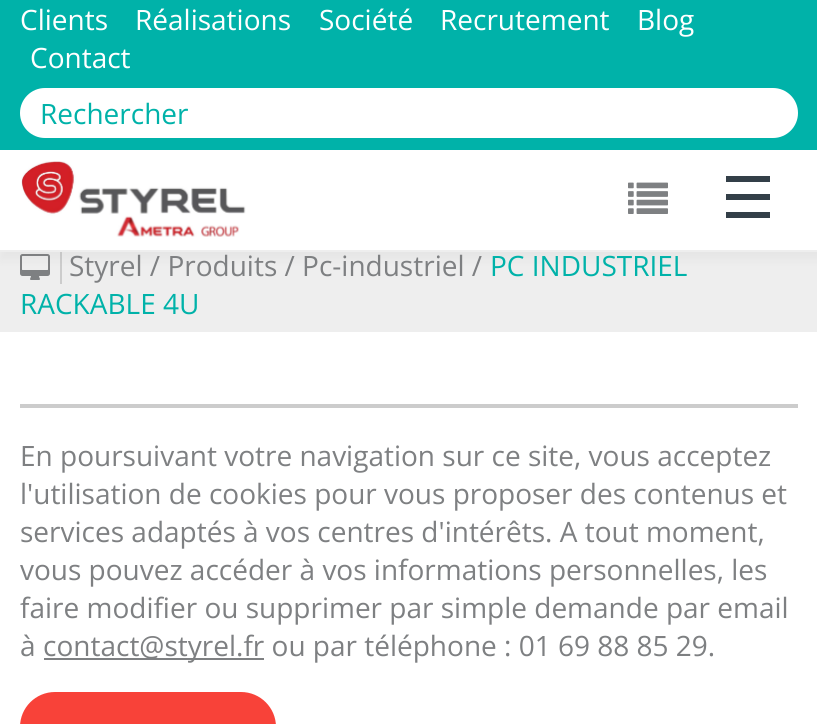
import math
import cairo

surface = cairo.ImageSurface(cairo.FORMAT_RGB24, 817, 724)
c = cairo.Context(surface)
options = cairo.FontOptions()
options.set_hint_metrics(cairo.HINT_METRICS_OFF)
options.set_hint_style(cairo.HINT_STYLE_NONE)
c.set_font_options(options)
c.set_miter_limit(4)
def C(code):
 c.set_source_rgb(*(v / 255 for v in bytes.fromhex(code[-6:])))
def F(family, size, italic, bold):
 c.select_font_face(family, cairo.FONT_SLANT_ITALIC if italic else cairo.FONT_SLANT_NORMAL, cairo.FONT_WEIGHT_BOLD if bold else cairo.FONT_WEIGHT_NORMAL)
 c.set_font_size(size)
def T(x, y, s):
 c.move_to(x, y)
 c.show_text(s)
def R(x, y, w, h):
 c.rectangle(x, y, w, h)
 c.fill()
def Q(x, y, w, h, r):
 c.new_sub_path()
 for i, (u, v) in enumerate([(x + w - r, y + h - r), (x + r, y + h - r), (x + r, y + r), (x + w - r, y + r)]):
  c.arc(u, v, r, i * math.pi / 2, (i + 1) * math.pi / 2)
 c.close_path()
def S(x, y, w, h, r, blur, alpha):
 c.push_group_with_content(cairo.CONTENT_ALPHA)
 c.set_operator(cairo.OPERATOR_SOURCE)
 for i in range(15, -16, -2):
  e = blur * i / 6
  if min(w, h) + 2 * e > 0:
   c.set_source_rgba(0, 0, 0, alpha * math.erfc((i - 1) / 8.5) / 2)
   Q(x - e, y - e, w + 2 * e, h + 2 * e, max(0, min(r + e + blur * .6, min(w, h) / 2 + e)))
   c.fill()
 c.mask(c.pop_group())
def I(path, x, y, w, h):
 c.save()
 c.set_source_surface(cairo.ImageSurface.create_from_png(path), x, y)
 c.rectangle(x, y, w, h)
 c.fill()
 c.restore()
C('ffffff')
c.paint()
C('eeeeee')
R(0,252,817,80)
I('3.png',20,254,30,26)
C('cccccc')
R(60,246,2,38)
C('808080')
S(0,0,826,260,0,5,.08)
C('00b2a9')
R(0,0,817,150)
F('Open Sans',28,0,0)
C('ffffff')
T(20,30,'Clients')
T(135,30,'Réalisations')
T(319,30,'Société')
T(440,30,'Recrutement')
T(637,30,'Blog')
T(30,68,'Contact')
Q(20,88,778,50,25)
c.fill()
C('00b2a9')
T(40,124,'Rechercher')
C('ffffff')
R(0,150,817,100)
C('eeeeee')
R(0,250,817,2)
I('1.png',21,161,225,76)
I('2.png',628,182,40,32)
C('333f48')
R(726,194,44,6)
R(726,176,44,6)
R(726,212,44,6)
C('7e8082')
T(69,276,'Styrel / Produits / Pc-industriel /')
C('00b2a9')
T(490,276,'PC INDUSTRIEL')
T(20,314,'RACKABLE 4U')
C('cccccc')
R(20,404,778,4)
C('7e8082')
T(20,466,'En poursuivant votre navigation sur ce site, vous acceptez')
T(20,504,'l\'utilisation de cookies pour vous proposer des contenus et')
T(20,542,'services adaptés à vos centres d\'intérêts. A tout moment,')
T(20,580,'vous pouvez accéder à vos informations personnelles, les')
T(20,618,'faire modifier ou supprimer par simple demande par email')
T(20,656,'à')
R(44,658,220,2)
T(43,656,'contact@styrel.fr ou par téléphone : 01 69 88 85 29.')
C('f84239')
Q(21,693,254,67,34)
c.fill_preserve()
c.stroke()
surface.write_to_png('o.png')
